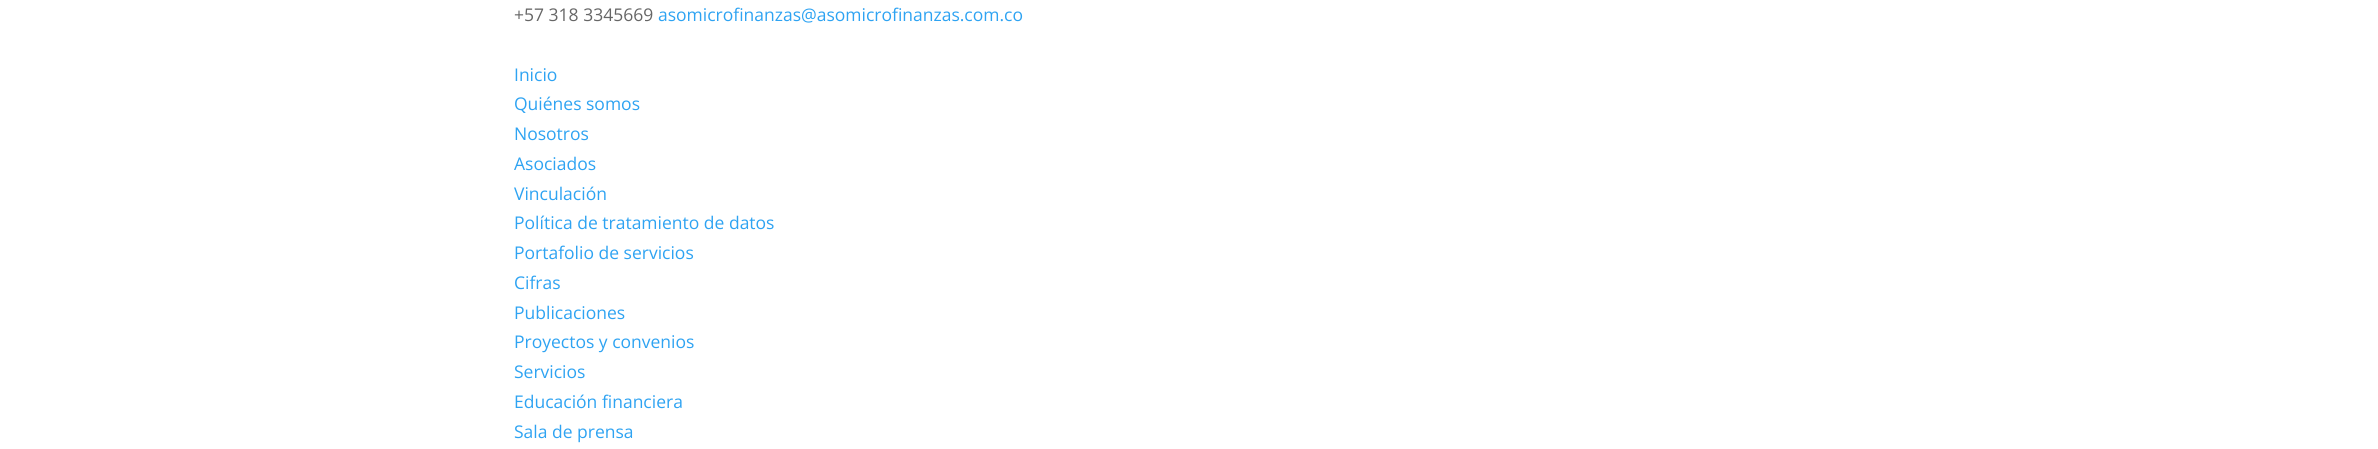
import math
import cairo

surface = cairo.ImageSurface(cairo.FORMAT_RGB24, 2378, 449)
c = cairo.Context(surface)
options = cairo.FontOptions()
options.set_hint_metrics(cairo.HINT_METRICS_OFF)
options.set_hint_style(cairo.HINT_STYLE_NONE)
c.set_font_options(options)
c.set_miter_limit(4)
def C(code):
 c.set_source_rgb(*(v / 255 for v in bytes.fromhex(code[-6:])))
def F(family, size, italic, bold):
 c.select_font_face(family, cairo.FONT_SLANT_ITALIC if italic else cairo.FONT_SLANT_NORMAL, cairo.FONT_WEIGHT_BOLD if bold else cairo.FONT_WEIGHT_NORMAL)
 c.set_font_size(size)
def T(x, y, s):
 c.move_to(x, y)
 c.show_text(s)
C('ffffff')
c.paint()
F('Open Sans',17.5,0,0)
C('666666')
T(514,21,'+57 318 3345669')
C('2ea3f2')
T(658,21,'asomicrofinanzas@asomicrofinanzas.com.co')
T(514,81,'Inicio')
T(514,110,'Quiénes somos')
T(514,140,'Nosotros')
T(514,170,'Asociados')
T(514,200,'Vinculación')
T(514,229,'Política de tratamiento de datos')
T(514,259,'Portafolio de servicios')
T(514,289,'Cifras')
T(514,319,'Publicaciones')
T(514,348,'Proyectos y convenios')
T(514,378,'Servicios')
T(514,408,'Educación financiera')
T(514,438,'Sala de prensa')
surface.write_to_png('o.png')
